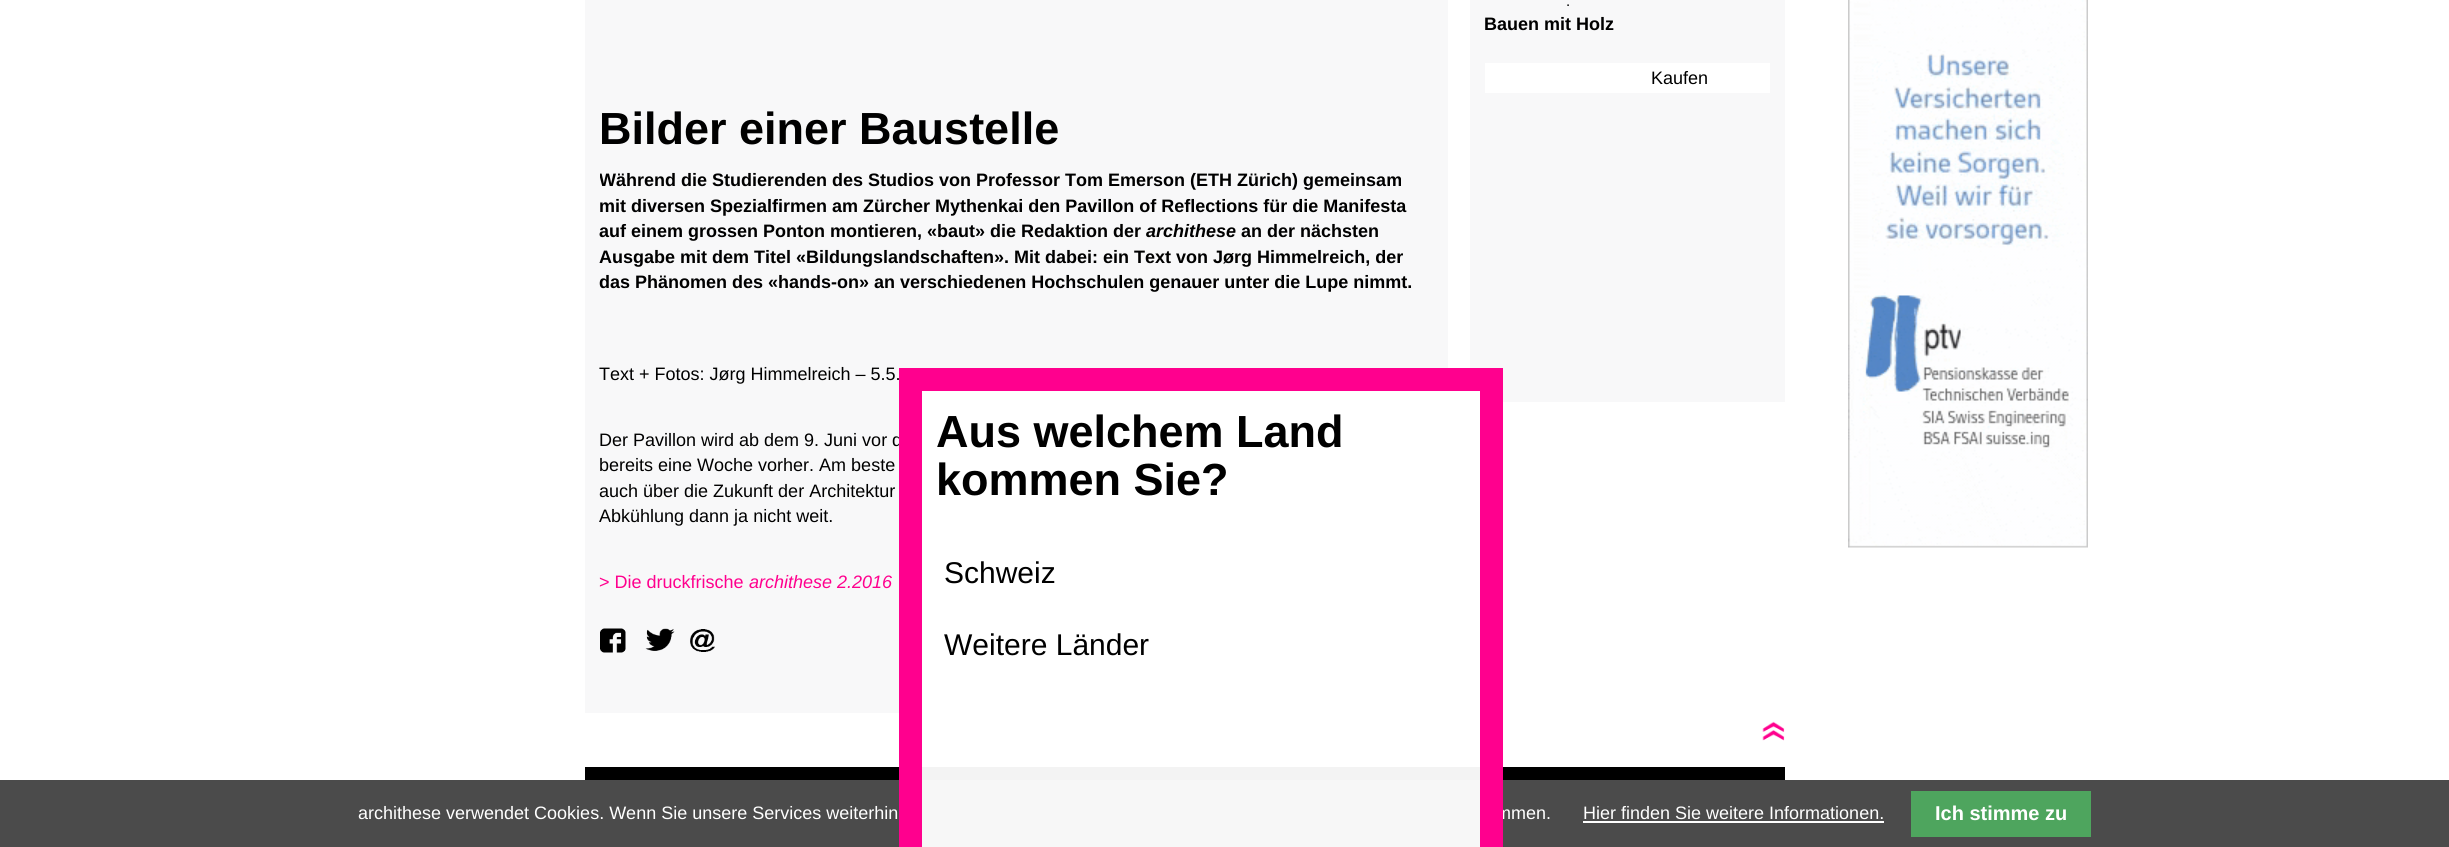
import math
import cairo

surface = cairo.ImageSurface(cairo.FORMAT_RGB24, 2449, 847)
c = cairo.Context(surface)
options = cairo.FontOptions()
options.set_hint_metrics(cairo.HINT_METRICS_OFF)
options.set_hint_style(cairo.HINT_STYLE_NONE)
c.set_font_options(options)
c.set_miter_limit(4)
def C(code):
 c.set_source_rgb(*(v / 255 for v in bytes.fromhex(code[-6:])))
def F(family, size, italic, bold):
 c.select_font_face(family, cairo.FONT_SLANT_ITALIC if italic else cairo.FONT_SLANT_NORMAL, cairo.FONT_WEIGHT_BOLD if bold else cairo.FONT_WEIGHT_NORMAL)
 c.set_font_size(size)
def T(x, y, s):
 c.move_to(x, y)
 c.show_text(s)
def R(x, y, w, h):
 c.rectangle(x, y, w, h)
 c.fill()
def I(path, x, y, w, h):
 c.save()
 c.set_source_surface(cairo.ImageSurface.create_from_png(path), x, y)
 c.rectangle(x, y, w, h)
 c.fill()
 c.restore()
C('ffffff')
c.paint()
C('f8f8f9')
R(1470,0,315,402)
F('Liberation Sans',15,0,0)
C('000000')
T(1566,6,'.')
F('Liberation Sans',18,0,1)
T(1484,30,'Bauen mit Holz')
C('ffffff')
R(1485,63,285,30)
F('Liberation Sans',18,0,0)
C('000000')
T(1651,84,'Kaufen')
C('f8f8f9')
R(585,0,863,713)
F('Liberation Sans',45,0,1)
C('000000')
T(599,144,'Bilder einer Baustelle')
c.save()
c.rectangle(600,102,833,501)
c.clip()
F('Liberation Sans',18,0,1)
T(599,186,'Während die Studierenden des Studios von Professor Tom Emerson (ETH Zürich) gemeinsam')
c.restore()
F('Liberation Sans',18,0,1)
T(599,212,'mit diversen Spezialfirmen am Zürcher Mythenkai den Pavillon of Reflections für die Manifesta')
T(599,237,'auf einem grossen Ponton montieren, «baut» die Redaktion der')
F('Liberation Sans',18,1,1)
T(1146,237,'archithese')
F('Liberation Sans',18,0,1)
T(1241,237,'an der nächsten')
T(599,263,'Ausgabe mit dem Titel «Bildungslandschaften». Mit dabei: ein Text von Jørg Himmelreich, der')
T(599,288,'das Phänomen des «hands-on» an verschiedenen Hochschulen genauer unter die Lupe nimmt.')
F('Liberation Sans',18,0,0)
T(599,380,'Text + Fotos: Jørg Himmelreich – 5.5.')
T(599,446,'Der Pavillon wird ab dem 9. Juni vor d')
T(599,471,'bereits eine Woche vorher. Am beste')
T(599,497,'auch über die Zukunft der Architektur')
T(599,522,'Abkühlung dann ja nicht weit.')
C('ff008e')
T(599,588,'> Die druckfrische')
F('Liberation Sans',18,1,0)
T(749,588,'archithese 2.2016')
I('1.png',600,628,26,25)
I('2.png',645,628,30,23)
I('3.png',690,629,25,23)
I('4.png',1762,721,23,20)
C('000000')
R(585,767,1200,13)
I('5.png',1848,0,240,548)
C('4b4b4b')
R(0,780,2449,67)
F('Liberation Sans',18,0,0)
C('ffffff')
T(1496,819,'mmen.')
c.set_source_rgba(1,1,1,0.95)
c.rectangle(910.5,379.5,581,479)
c.fill_preserve()
C('ff008e')
c.set_line_width(23)
c.stroke()
F('Liberation Sans',45,0,1)
C('000000')
T(936,447,'Aus welchem Land')
T(936,495,'kommen Sie?')
F('Liberation Sans',30,0,0)
T(944,583,'Schweiz')
T(944,655,'Weitere Länder')
F('Liberation Sans',18,0,0)
C('ffffff')
T(358,819,'archithese verwendet Cookies. Wenn Sie unsere Services weiterhin')
T(1583,819,'Hier finden Sie weitere Informationen.')
R(1583,821,301,2)
C('4ea55e')
R(1911,791,180,46)
F('Liberation Sans',20,0,1)
C('ffffff')
T(1935,820,'Ich stimme zu')
surface.write_to_png('o.png')
